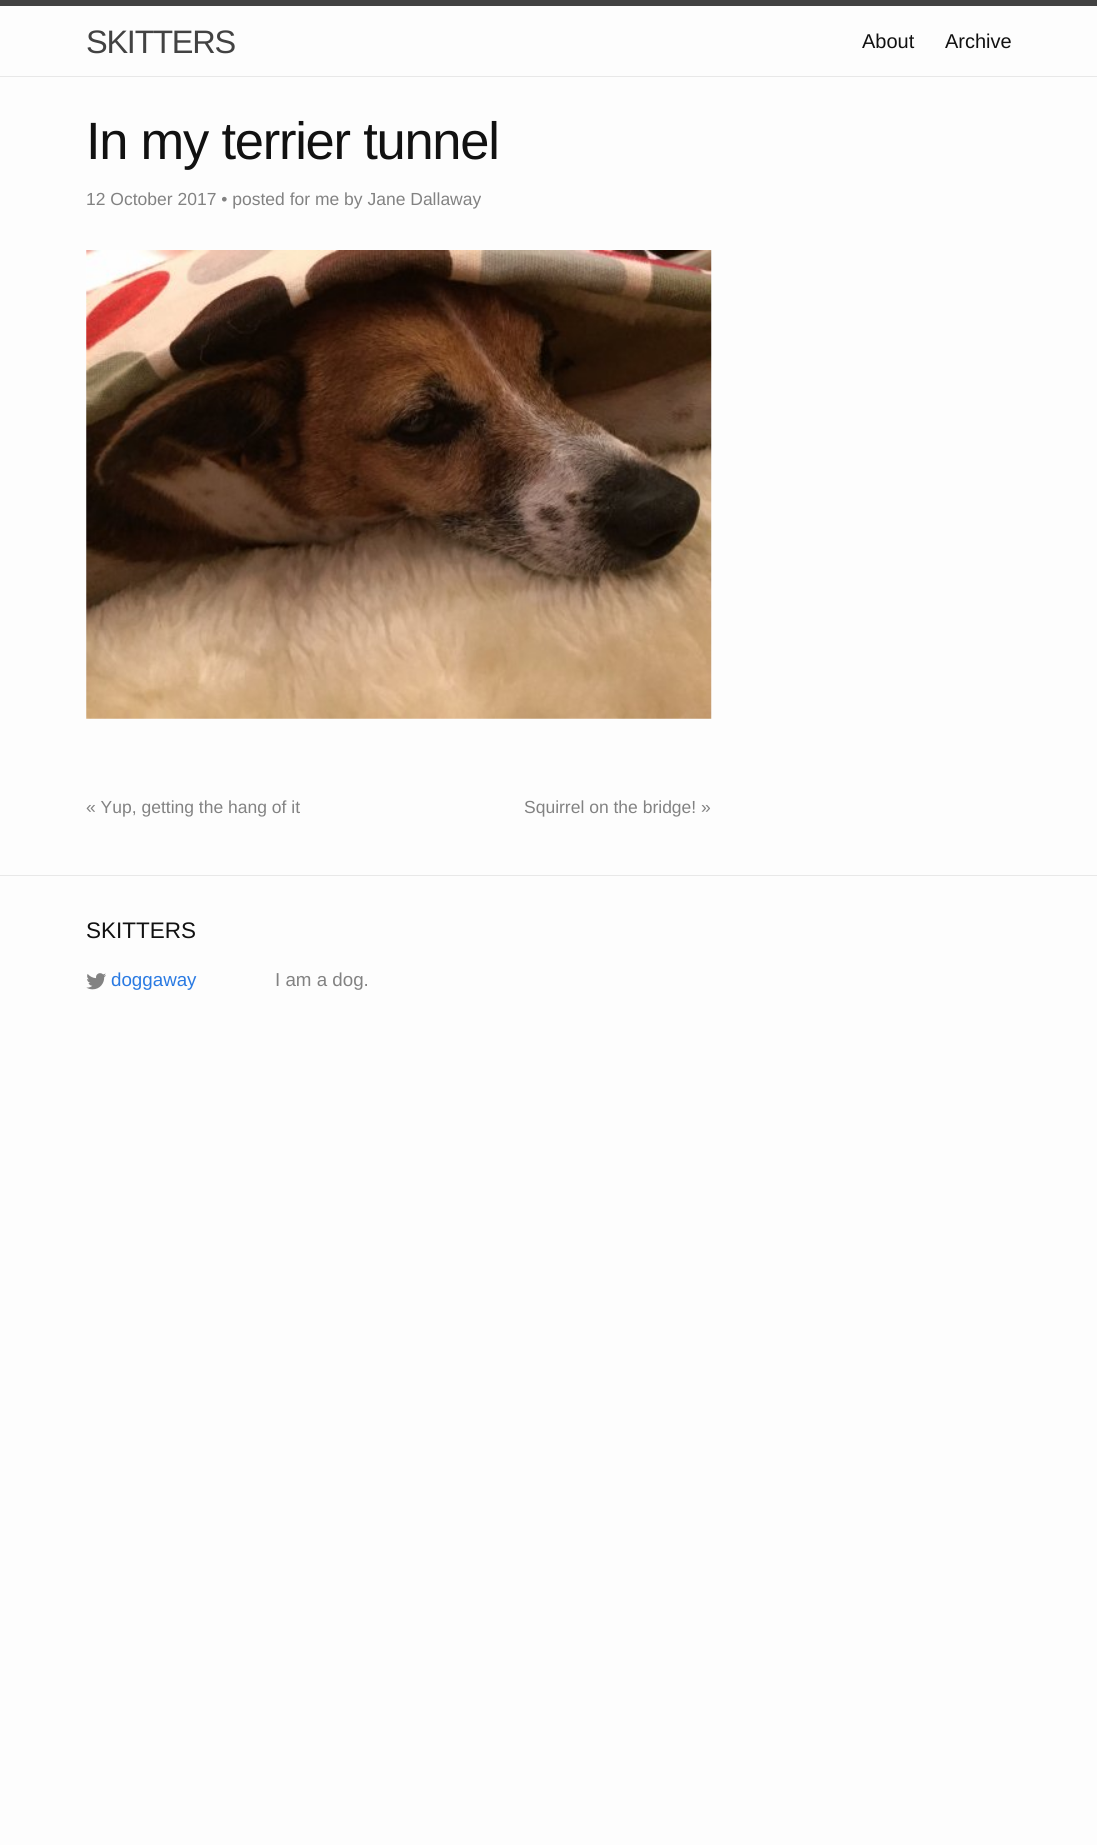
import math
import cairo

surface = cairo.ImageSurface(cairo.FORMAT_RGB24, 1097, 1845)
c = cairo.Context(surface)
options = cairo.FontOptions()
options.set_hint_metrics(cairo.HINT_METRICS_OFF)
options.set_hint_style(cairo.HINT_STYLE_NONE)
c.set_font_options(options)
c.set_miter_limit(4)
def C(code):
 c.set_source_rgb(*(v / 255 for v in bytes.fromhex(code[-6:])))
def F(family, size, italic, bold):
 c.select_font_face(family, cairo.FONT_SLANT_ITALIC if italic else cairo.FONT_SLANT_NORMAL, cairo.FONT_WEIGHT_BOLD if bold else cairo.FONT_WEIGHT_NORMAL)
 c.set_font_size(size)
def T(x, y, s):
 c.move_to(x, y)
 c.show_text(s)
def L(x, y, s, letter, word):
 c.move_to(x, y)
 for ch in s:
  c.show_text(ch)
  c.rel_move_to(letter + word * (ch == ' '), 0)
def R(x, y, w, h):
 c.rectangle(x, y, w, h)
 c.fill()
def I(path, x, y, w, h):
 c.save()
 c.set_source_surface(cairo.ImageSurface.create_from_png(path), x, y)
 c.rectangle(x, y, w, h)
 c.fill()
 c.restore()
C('fdfdfd')
c.paint()
C('424242')
R(0,0,1097,6)
C('e8e8e8')
R(0,76,1097,1)
F('Liberation Sans',32.5,0,0)
C('424242')
L(86,53,'SKITTERS',-1.25,0)
F('Liberation Sans',20,0,0)
C('111111')
T(862,48,'About')
T(945,48,'Archive')
F('Liberation Sans',52.5,0,0)
L(86,159,'In my terrier tunnel',-1.25,0)
F('Liberation Sans',17.5,0,0)
C('828282')
T(86,205,'12 October 2017 • posted for me by Jane Dallaway')
I('1.png',86,250,626,469)
T(86,813,'« Yup, getting the hang of it')
T(524,813,'Squirrel on the bridge! »')
C('e8e8e8')
R(0,875,1097,1)
F('Liberation Sans',22.5,0,0)
C('111111')
T(86,938,'SKITTERS')
I('2.png',86,973,20,17)
F('Liberation Sans',18.75,0,0)
C('2a7ae2')
T(111,986,'doggaway')
C('828282')
T(275,986,'I am a dog.')
surface.write_to_png('o.png')
